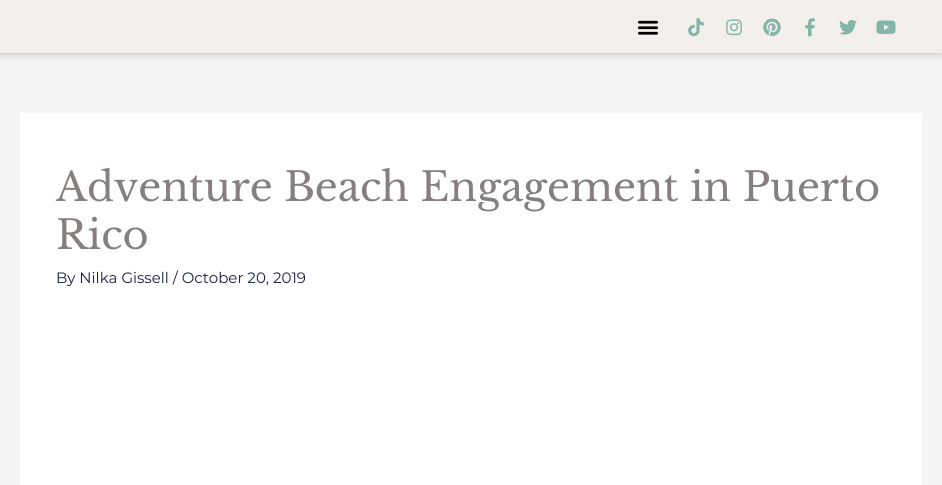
import math
import cairo

surface = cairo.ImageSurface(cairo.FORMAT_RGB24, 942, 485)
c = cairo.Context(surface)
options = cairo.FontOptions()
options.set_hint_metrics(cairo.HINT_METRICS_OFF)
options.set_hint_style(cairo.HINT_STYLE_NONE)
c.set_font_options(options)
c.set_miter_limit(4)
def C(code):
 c.set_source_rgb(*(v / 255 for v in bytes.fromhex(code[-6:])))
def F(family, size, italic, bold):
 c.select_font_face(family, cairo.FONT_SLANT_ITALIC if italic else cairo.FONT_SLANT_NORMAL, cairo.FONT_WEIGHT_BOLD if bold else cairo.FONT_WEIGHT_NORMAL)
 c.set_font_size(size)
def T(x, y, s):
 c.move_to(x, y)
 c.show_text(s)
def R(x, y, w, h):
 c.rectangle(x, y, w, h)
 c.fill()
def Q(x, y, w, h, r):
 c.new_sub_path()
 for i, (u, v) in enumerate([(x + w - r, y + h - r), (x + r, y + h - r), (x + r, y + r), (x + w - r, y + r)]):
  c.arc(u, v, r, i * math.pi / 2, (i + 1) * math.pi / 2)
 c.close_path()
def S(x, y, w, h, r, blur, alpha):
 c.push_group_with_content(cairo.CONTENT_ALPHA)
 c.set_operator(cairo.OPERATOR_SOURCE)
 for i in range(15, -16, -2):
  e = blur * i / 6
  if min(w, h) + 2 * e > 0:
   c.set_source_rgba(0, 0, 0, alpha * math.erfc((i - 1) / 8.5) / 2)
   Q(x - e, y - e, w + 2 * e, h + 2 * e, max(0, min(r + e + blur * .6, min(w, h) / 2 + e)))
   c.fill()
 c.mask(c.pop_group())
def I(path, x, y, w, h):
 c.save()
 c.set_source_surface(cairo.ImageSurface.create_from_png(path), x, y)
 c.rectangle(x, y, w, h)
 c.fill()
 c.restore()
C('f5f5f5')
c.paint()
C('000000')
S(0,0,942,53,0,5,.25)
C('f2efec')
R(0,0,942,53)
I('1.png',637,20,22,15)
I('2.png',688,18,16,19)
I('3.png',726,19,16,17)
I('4.png',763,18,18,18)
I('5.png',805,18,10,19)
I('6.png',839,20,18,15)
I('7.png',876,20,20,14)
C('ffffff')
R(20,113,902,372)
F('Libre Baskerville',40,0,0)
C('857f7f')
T(56,201,'Adventure Beach Engagement in Puerto')
T(56,249,'Rico')
F('Montserrat',15,0,0)
C('1a2041')
T(56,283,'By Nilka Gissell / October 20, 2019')
surface.write_to_png('o.png')
